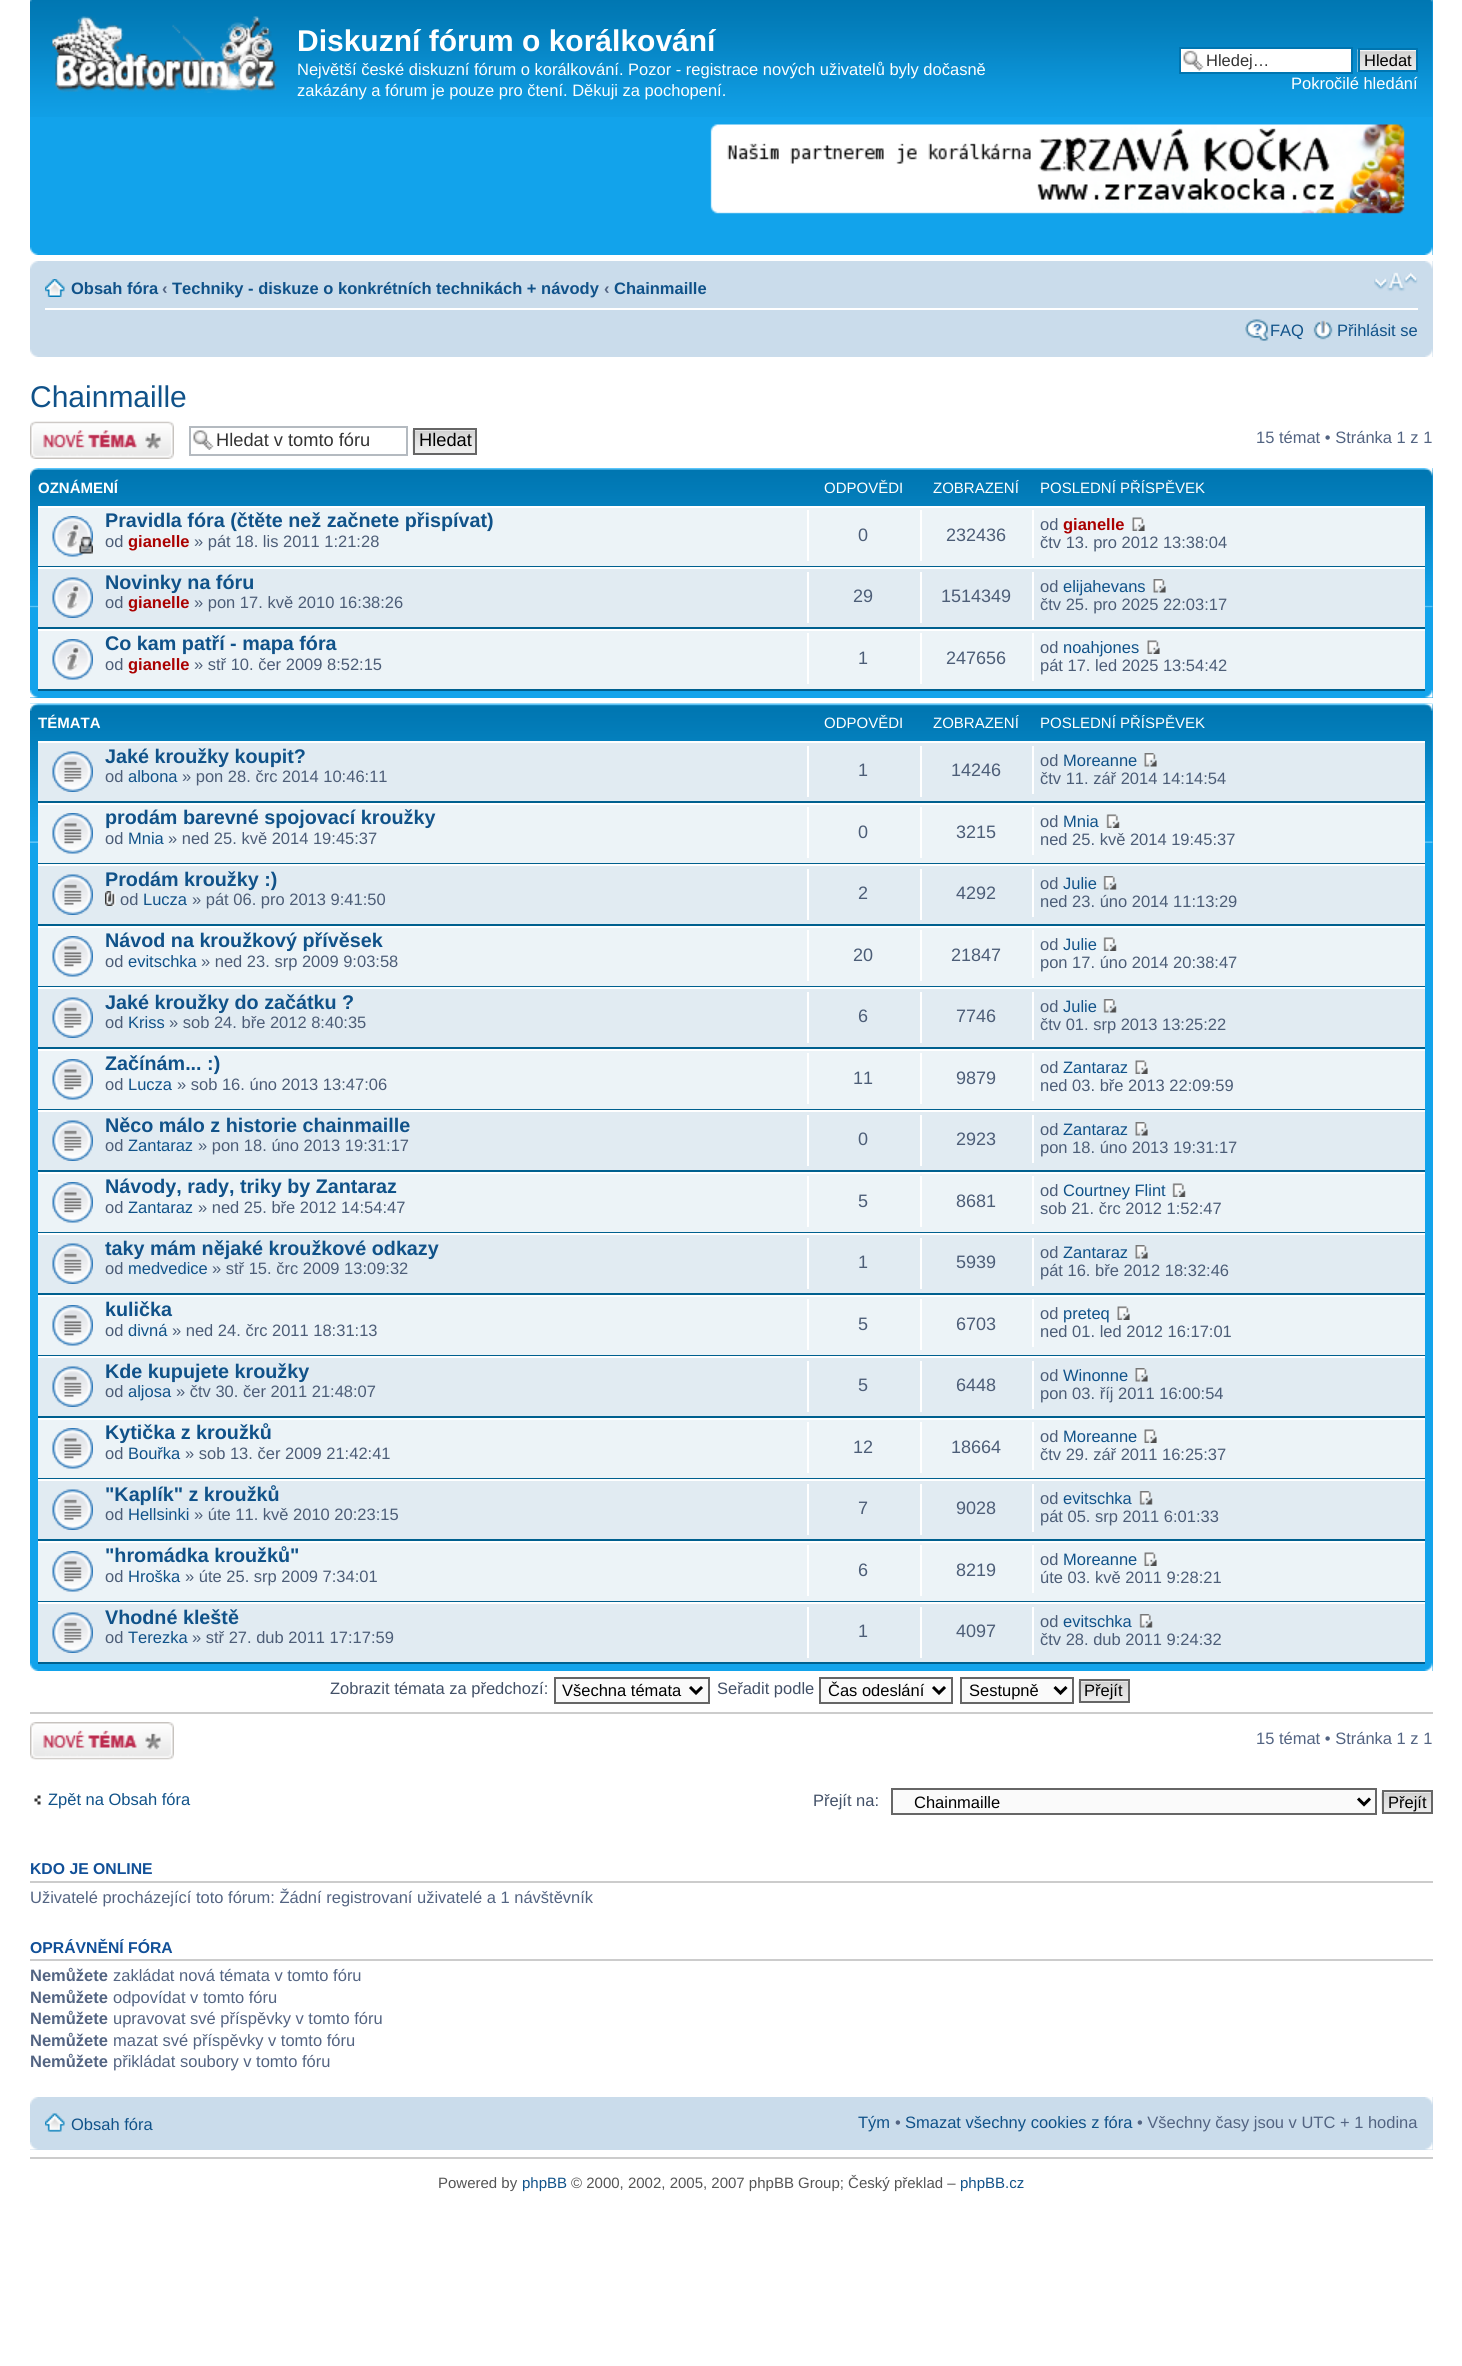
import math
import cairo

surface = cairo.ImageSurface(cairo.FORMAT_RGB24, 1462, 2366)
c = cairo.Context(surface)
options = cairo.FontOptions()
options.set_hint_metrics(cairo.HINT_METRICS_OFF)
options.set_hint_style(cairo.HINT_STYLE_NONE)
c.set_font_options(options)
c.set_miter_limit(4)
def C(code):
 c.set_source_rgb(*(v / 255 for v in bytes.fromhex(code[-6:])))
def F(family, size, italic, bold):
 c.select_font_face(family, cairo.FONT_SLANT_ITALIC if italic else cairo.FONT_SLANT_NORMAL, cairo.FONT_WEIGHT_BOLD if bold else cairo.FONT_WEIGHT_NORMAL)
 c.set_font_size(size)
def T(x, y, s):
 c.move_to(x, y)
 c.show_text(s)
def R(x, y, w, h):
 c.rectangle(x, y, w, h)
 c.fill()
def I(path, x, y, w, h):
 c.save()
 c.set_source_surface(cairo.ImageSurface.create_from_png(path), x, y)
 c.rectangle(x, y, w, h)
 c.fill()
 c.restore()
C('ffffff')
c.paint()
C('12a3eb')
R(30,0,1403,255)
I('1.png',30,0,1403,117)
I('2.png',30,0,2,2)
I('3.png',1430,0,3,2)
I('4.png',52,16,226,77)
F('Liberation Sans',30,0,1)
C('ffffff')
T(297,51,'Diskuzní fórum o korálkování')
F('Liberation Sans',16.5,0,0)
T(297,75,'Největší české diskuzní fórum o korálkování. Pozor - registrace nových uživatelů byly dočasně')
T(297,96,'zakázány a fórum je pouze pro čtení. Děkuji za pochopení.')
R(1181,49,170,23)
I('5.png',1183,50,21,21)
c.rectangle(1180,48,172,25)
C('0075b0')
c.stroke()
C('333333')
T(1206,66,'Hledej…')
I('6.png',1357,49,59,23)
c.rectangle(1359,49,58,22)
C('0075b0')
c.stroke()
C('000000')
T(1364,66,'Hledat')
C('ffffff')
T(1291,89,'Pokročilé hledání')
I('7.png',710,124,695,90)
I('8.png',30,247,8,8)
I('9.png',1424,247,9,8)
C('cadceb')
R(30,261,1403,96)
I('10.png',30,261,8,8)
I('11.png',1425,261,8,8)
C('ffffff')
R(45,308,1373,2)
I('12.png',45,279,20,18)
F('Liberation Sans',16.5,0,1)
C('105289')
T(71,294,'Obsah fóra')
C('536482')
T(162,294,'‹')
C('105289')
T(172,294,'Techniky - diskuze o konkrétních technikách + návody')
C('536482')
T(604,294,'‹')
C('105289')
T(614,294,'Chainmaille')
I('13.png',1374,272,44,20)
I('14.png',1245,319,24,22)
F('Liberation Sans',16.5,0,0)
T(1270,336,'FAQ')
I('15.png',1313,320,20,20)
T(1337,336,'Přihlásit se')
I('16.png',30,349,8,8)
I('17.png',1425,349,8,8)
F('Liberation Sans',30,0,0)
T(30,407,'Chainmaille')
I('18.png',30,421,144,38)
I('19.png',193,430,21,20)
c.rectangle(190,427,217,28)
C('b4bac0')
c.stroke()
F('Liberation Sans',18.25,0,0)
C('333333')
T(216,446,'Hledat v tomto fóru')
I('20.png',412,429,63,26)
c.rectangle(414,429,62,25)
C('666666')
c.stroke()
C('000000')
T(419,446,'Hledat')
F('Liberation Sans',16.5,0,0)
C('536482')
T(1256,443,'15 témat • Stránka 1 z 1')
C('12a3eb')
R(30,468,1403,230)
I('21.png',30,468,1403,140)
I('22.png',30,468,8,8)
I('23.png',1424,468,9,8)
F('Liberation Sans',15,0,1)
C('ffffff')
T(38,493,'OZNÁMENÍ')
F('Liberation Sans',15,0,0)
T(824,493,'ODPOVĚDI')
T(933,493,'ZOBRAZENÍ')
T(1040,493,'POSLEDNÍ PŘÍSPĚVEK')
C('ecf3f7')
R(38,508,1387,58)
C('ffffff')
R(38,506,1387,2)
C('00608f')
R(38,566,1387,1)
I('24.png',52,516,41,41)
F('Liberation Sans',19.75,0,1)
C('105289')
T(105,527,'Pravidla fóra (čtěte než začnete přispívat)')
F('Liberation Sans',16.5,0,0)
C('4c5d77')
T(105,547,'od')
F('Liberation Sans',16.5,0,1)
C('aa0000')
T(128,547,'gianelle')
F('Liberation Sans',16.5,0,0)
C('4c5d77')
T(194,547,'» pát 18. lis 2011 1:21:28')
C('ffffff')
R(807,510,2,51)
F('Liberation Sans',18,0,0)
C('4c5d77')
T(858,541,'0')
C('ffffff')
R(920,510,2,51)
C('4c5d77')
T(946,541,'232436')
C('ffffff')
R(1032,510,2,48)
F('Liberation Sans',16.5,0,0)
C('4c5d77')
T(1040,530,'od')
F('Liberation Sans',16.5,0,1)
C('aa0000')
T(1063,530,'gianelle')
I('25.png',1132,517,13,14)
F('Liberation Sans',16.5,0,0)
C('4c5d77')
T(1040,548,'čtv 13. pro 2012 13:38:04')
C('e1ebf2')
R(38,569,1387,58)
C('ffffff')
R(38,567,1387,2)
C('00608f')
R(38,627,1387,2)
I('26.png',52,577,41,41)
F('Liberation Sans',19.75,0,1)
C('105289')
T(105,589,'Novinky na fóru')
F('Liberation Sans',16.5,0,0)
C('4c5d77')
T(105,608,'od')
F('Liberation Sans',16.5,0,1)
C('aa0000')
T(128,608,'gianelle')
F('Liberation Sans',16.5,0,0)
C('4c5d77')
T(194,608,'» pon 17. kvě 2010 16:38:26')
C('ffffff')
R(807,572,2,51)
F('Liberation Sans',18,0,0)
C('4c5d77')
T(853,602,'29')
C('ffffff')
R(920,572,2,51)
C('4c5d77')
T(941,602,'1514349')
C('ffffff')
R(1032,572,2,48)
F('Liberation Sans',16.5,0,0)
C('4c5d77')
T(1040,592,'od')
C('105289')
T(1063,592,'elijahevans')
I('27.png',1153,579,13,14)
C('4c5d77')
T(1040,610,'čtv 25. pro 2025 22:03:17')
C('ecf3f7')
R(38,631,1387,58)
C('ffffff')
R(38,629,1387,2)
C('00608f')
R(38,689,1387,2)
I('28.png',52,639,41,41)
F('Liberation Sans',19.75,0,1)
C('105289')
T(105,650,'Co kam patří - mapa fóra')
F('Liberation Sans',16.5,0,0)
C('4c5d77')
T(105,670,'od')
F('Liberation Sans',16.5,0,1)
C('aa0000')
T(128,670,'gianelle')
F('Liberation Sans',16.5,0,0)
C('4c5d77')
T(194,670,'» stř 10. čer 2009 8:52:15')
C('ffffff')
R(807,633,2,51)
F('Liberation Sans',18,0,0)
C('4c5d77')
T(858,664,'1')
C('ffffff')
R(920,633,2,51)
C('4c5d77')
T(946,664,'247656')
C('ffffff')
R(1032,633,2,48)
F('Liberation Sans',16.5,0,0)
C('4c5d77')
T(1040,653,'od')
C('105289')
T(1063,653,'noahjones')
I('25.png',1147,640,13,14)
C('4c5d77')
T(1040,671,'pát 17. led 2025 13:54:42')
I('29.png',30,690,8,8)
I('30.png',1424,690,9,8)
C('12a3eb')
R(30,704,1403,967)
I('31.png',30,703,1403,140)
I('32.png',30,703,8,8)
I('33.png',1424,703,9,8)
c.save()
c.rectangle(38,711,1387,30)
c.clip()
F('Liberation Sans',15,0,1)
C('ffffff')
T(38,728,'TÉMATA')
c.restore()
F('Liberation Sans',15,0,0)
C('ffffff')
T(824,728,'ODPOVĚDI')
T(933,728,'ZOBRAZENÍ')
T(1040,728,'POSLEDNÍ PŘÍSPĚVEK')
C('e1ebf2')
R(38,743,1387,58)
C('ffffff')
R(38,741,1387,2)
C('00608f')
R(38,801,1387,2)
I('34.png',52,751,41,41)
F('Liberation Sans',19.75,0,1)
C('105289')
T(105,763,'Jaké kroužky koupit?')
F('Liberation Sans',16.5,0,0)
C('4c5d77')
T(105,782,'od')
C('105289')
T(128,782,'albona')
C('4c5d77')
T(182,782,'» pon 28. črc 2014 10:46:11')
C('ffffff')
R(807,746,2,51)
F('Liberation Sans',18,0,0)
C('4c5d77')
T(858,776,'1')
C('ffffff')
R(920,746,2,51)
C('4c5d77')
T(951,776,'14246')
C('ffffff')
R(1032,746,2,48)
F('Liberation Sans',16.5,0,0)
C('4c5d77')
T(1040,766,'od')
C('105289')
T(1063,766,'Moreanne')
I('27.png',1144,753,13,14)
C('4c5d77')
T(1040,784,'čtv 11. zář 2014 14:14:54')
C('ecf3f7')
R(38,805,1387,58)
C('ffffff')
R(38,803,1387,2)
C('00608f')
R(38,863,1387,1)
I('35.png',52,813,41,41)
F('Liberation Sans',19.75,0,1)
C('105289')
T(105,824,'prodám barevné spojovací kroužky')
F('Liberation Sans',16.5,0,0)
C('4c5d77')
T(105,844,'od')
C('105289')
T(128,844,'Mnia')
C('4c5d77')
T(168,844,'» ned 25. kvě 2014 19:45:37')
C('ffffff')
R(807,807,2,51)
F('Liberation Sans',18,0,0)
C('4c5d77')
T(858,838,'0')
C('ffffff')
R(920,807,2,51)
C('4c5d77')
T(956,838,'3215')
C('ffffff')
R(1032,807,2,48)
F('Liberation Sans',16.5,0,0)
C('4c5d77')
T(1040,827,'od')
C('105289')
T(1063,827,'Mnia')
I('36.png',1106,814,14,14)
C('4c5d77')
T(1040,845,'ned 25. kvě 2014 19:45:37')
C('e1ebf2')
R(38,866,1387,58)
C('ffffff')
R(38,864,1387,2)
C('00608f')
R(38,924,1387,2)
I('34.png',52,874,41,41)
F('Liberation Sans',19.75,0,1)
C('105289')
T(105,886,'Prodám kroužky :)')
I('37.png',105,891,11,15)
F('Liberation Sans',16.5,0,0)
C('4c5d77')
T(120,905,'od')
C('105289')
T(143,905,'Lucza')
C('4c5d77')
T(192,905,'» pát 06. pro 2013 9:41:50')
C('ffffff')
R(807,869,2,51)
F('Liberation Sans',18,0,0)
C('4c5d77')
T(858,899,'2')
C('ffffff')
R(920,869,2,51)
C('4c5d77')
T(956,899,'4292')
C('ffffff')
R(1032,869,2,48)
F('Liberation Sans',16.5,0,0)
C('4c5d77')
T(1040,889,'od')
C('105289')
T(1063,889,'Julie')
I('38.png',1103,876,14,14)
C('4c5d77')
T(1040,907,'ned 23. úno 2014 11:13:29')
C('ecf3f7')
R(38,928,1387,58)
C('ffffff')
R(38,926,1387,2)
C('00608f')
R(38,986,1387,1)
I('35.png',52,936,41,41)
F('Liberation Sans',19.75,0,1)
C('105289')
T(105,947,'Návod na kroužkový přívěsek')
F('Liberation Sans',16.5,0,0)
C('4c5d77')
T(105,967,'od')
C('105289')
T(128,967,'evitschka')
C('4c5d77')
T(201,967,'» ned 23. srp 2009 9:03:58')
C('ffffff')
R(807,930,2,51)
F('Liberation Sans',18,0,0)
C('4c5d77')
T(853,961,'20')
C('ffffff')
R(920,930,2,51)
C('4c5d77')
T(951,961,'21847')
C('ffffff')
R(1032,930,2,48)
F('Liberation Sans',16.5,0,0)
C('4c5d77')
T(1040,950,'od')
C('105289')
T(1063,950,'Julie')
I('36.png',1103,937,14,14)
C('4c5d77')
T(1040,968,'pon 17. úno 2014 20:38:47')
C('e1ebf2')
R(38,989,1387,58)
C('ffffff')
R(38,987,1387,2)
C('00608f')
R(38,1047,1387,2)
I('34.png',52,997,41,41)
F('Liberation Sans',19.75,0,1)
C('105289')
T(105,1009,'Jaké kroužky do začátku ?')
F('Liberation Sans',16.5,0,0)
C('4c5d77')
T(105,1028,'od')
C('105289')
T(128,1028,'Kriss')
C('4c5d77')
T(169,1028,'» sob 24. bře 2012 8:40:35')
C('ffffff')
R(807,992,2,51)
F('Liberation Sans',18,0,0)
C('4c5d77')
T(858,1022,'6')
C('ffffff')
R(920,992,2,51)
C('4c5d77')
T(956,1022,'7746')
C('ffffff')
R(1032,992,2,48)
F('Liberation Sans',16.5,0,0)
C('4c5d77')
T(1040,1012,'od')
C('105289')
T(1063,1012,'Julie')
I('38.png',1103,999,14,14)
C('4c5d77')
T(1040,1030,'čtv 01. srp 2013 13:25:22')
C('ecf3f7')
R(38,1051,1387,58)
C('ffffff')
R(38,1049,1387,2)
C('00608f')
R(38,1109,1387,1)
I('35.png',52,1059,41,41)
F('Liberation Sans',19.75,0,1)
C('105289')
T(105,1070,'Začínám... :)')
F('Liberation Sans',16.5,0,0)
C('4c5d77')
T(105,1090,'od')
C('105289')
T(128,1090,'Lucza')
C('4c5d77')
T(177,1090,'» sob 16. úno 2013 13:47:06')
C('ffffff')
R(807,1053,2,51)
F('Liberation Sans',18,0,0)
C('4c5d77')
T(853,1084,'11')
C('ffffff')
R(920,1053,2,51)
C('4c5d77')
T(956,1084,'9879')
C('ffffff')
R(1032,1053,2,48)
F('Liberation Sans',16.5,0,0)
C('4c5d77')
T(1040,1073,'od')
C('105289')
T(1063,1073,'Zantaraz')
I('25.png',1135,1060,13,14)
C('4c5d77')
T(1040,1091,'ned 03. bře 2013 22:09:59')
C('e1ebf2')
R(38,1112,1387,58)
C('ffffff')
R(38,1110,1387,2)
C('00608f')
R(38,1170,1387,2)
I('34.png',52,1120,41,41)
F('Liberation Sans',19.75,0,1)
C('105289')
T(105,1132,'Něco málo z historie chainmaille')
F('Liberation Sans',16.5,0,0)
C('4c5d77')
T(105,1151,'od')
C('105289')
T(128,1151,'Zantaraz')
C('4c5d77')
T(198,1151,'» pon 18. úno 2013 19:31:17')
C('ffffff')
R(807,1115,2,51)
F('Liberation Sans',18,0,0)
C('4c5d77')
T(858,1145,'0')
C('ffffff')
R(920,1115,2,51)
C('4c5d77')
T(956,1145,'2923')
C('ffffff')
R(1032,1115,2,48)
F('Liberation Sans',16.5,0,0)
C('4c5d77')
T(1040,1135,'od')
C('105289')
T(1063,1135,'Zantaraz')
I('27.png',1135,1122,13,14)
C('4c5d77')
T(1040,1153,'pon 18. úno 2013 19:31:17')
C('ecf3f7')
R(38,1174,1387,58)
C('ffffff')
R(38,1172,1387,2)
C('00608f')
R(38,1232,1387,1)
I('35.png',52,1182,41,41)
F('Liberation Sans',19.75,0,1)
C('105289')
T(105,1193,'Návody, rady, triky by Zantaraz')
F('Liberation Sans',16.5,0,0)
C('4c5d77')
T(105,1213,'od')
C('105289')
T(128,1213,'Zantaraz')
C('4c5d77')
T(198,1213,'» ned 25. bře 2012 14:54:47')
C('ffffff')
R(807,1176,2,51)
F('Liberation Sans',18,0,0)
C('4c5d77')
T(858,1207,'5')
C('ffffff')
R(920,1176,2,51)
C('4c5d77')
T(956,1207,'8681')
C('ffffff')
R(1032,1176,2,48)
F('Liberation Sans',16.5,0,0)
C('4c5d77')
T(1040,1196,'od')
C('105289')
T(1063,1196,'Courtney Flint')
I('36.png',1172,1183,14,14)
C('4c5d77')
T(1040,1214,'sob 21. črc 2012 1:52:47')
C('e1ebf2')
R(38,1235,1387,58)
C('ffffff')
R(38,1233,1387,2)
C('00608f')
R(38,1293,1387,2)
I('34.png',52,1243,41,41)
F('Liberation Sans',19.75,0,1)
C('105289')
T(105,1255,'taky mám nějaké kroužkové odkazy')
F('Liberation Sans',16.5,0,0)
C('4c5d77')
T(105,1274,'od')
C('105289')
T(128,1274,'medvedice')
C('4c5d77')
T(212,1274,'» stř 15. črc 2009 13:09:32')
C('ffffff')
R(807,1238,2,51)
F('Liberation Sans',18,0,0)
C('4c5d77')
T(858,1268,'1')
C('ffffff')
R(920,1238,2,51)
C('4c5d77')
T(956,1268,'5939')
C('ffffff')
R(1032,1238,2,48)
F('Liberation Sans',16.5,0,0)
C('4c5d77')
T(1040,1258,'od')
C('105289')
T(1063,1258,'Zantaraz')
I('27.png',1135,1245,13,14)
C('4c5d77')
T(1040,1276,'pát 16. bře 2012 18:32:46')
C('ecf3f7')
R(38,1297,1387,58)
C('ffffff')
R(38,1295,1387,2)
C('00608f')
R(38,1355,1387,1)
I('35.png',52,1305,41,41)
F('Liberation Sans',19.75,0,1)
C('105289')
T(105,1316,'kulička')
F('Liberation Sans',16.5,0,0)
C('4c5d77')
T(105,1336,'od')
C('105289')
T(128,1336,'divná')
C('4c5d77')
T(172,1336,'» ned 24. črc 2011 18:31:13')
C('ffffff')
R(807,1299,2,51)
F('Liberation Sans',18,0,0)
C('4c5d77')
T(858,1330,'5')
C('ffffff')
R(920,1299,2,51)
C('4c5d77')
T(956,1330,'6703')
C('ffffff')
R(1032,1299,2,48)
F('Liberation Sans',16.5,0,0)
C('4c5d77')
T(1040,1319,'od')
C('105289')
T(1063,1319,'preteq')
I('25.png',1117,1306,13,14)
C('4c5d77')
T(1040,1337,'ned 01. led 2012 16:17:01')
C('e1ebf2')
R(38,1358,1387,58)
C('ffffff')
R(38,1356,1387,2)
C('00608f')
R(38,1416,1387,2)
I('34.png',52,1366,41,41)
F('Liberation Sans',19.75,0,1)
C('105289')
T(105,1378,'Kde kupujete kroužky')
F('Liberation Sans',16.5,0,0)
C('4c5d77')
T(105,1397,'od')
C('105289')
T(128,1397,'aljosa')
C('4c5d77')
T(176,1397,'» čtv 30. čer 2011 21:48:07')
C('ffffff')
R(807,1361,2,51)
F('Liberation Sans',18,0,0)
C('4c5d77')
T(858,1391,'5')
C('ffffff')
R(920,1361,2,51)
C('4c5d77')
T(956,1391,'6448')
C('ffffff')
R(1032,1361,2,48)
F('Liberation Sans',16.5,0,0)
C('4c5d77')
T(1040,1381,'od')
C('105289')
T(1063,1381,'Winonne')
I('27.png',1135,1368,13,14)
C('4c5d77')
T(1040,1399,'pon 03. říj 2011 16:00:54')
C('ecf3f7')
R(38,1420,1387,58)
C('ffffff')
R(38,1418,1387,2)
C('00608f')
R(38,1478,1387,1)
I('35.png',52,1428,41,41)
F('Liberation Sans',19.75,0,1)
C('105289')
T(105,1439,'Kytička z kroužků')
F('Liberation Sans',16.5,0,0)
C('4c5d77')
T(105,1459,'od')
C('105289')
T(128,1459,'Bouřka')
C('4c5d77')
T(185,1459,'» sob 13. čer 2009 21:42:41')
C('ffffff')
R(807,1422,2,51)
F('Liberation Sans',18,0,0)
C('4c5d77')
T(853,1453,'12')
C('ffffff')
R(920,1422,2,51)
C('4c5d77')
T(951,1453,'18664')
C('ffffff')
R(1032,1422,2,48)
F('Liberation Sans',16.5,0,0)
C('4c5d77')
T(1040,1442,'od')
C('105289')
T(1063,1442,'Moreanne')
I('25.png',1144,1429,13,14)
C('4c5d77')
T(1040,1460,'čtv 29. zář 2011 16:25:37')
C('e1ebf2')
R(38,1481,1387,58)
C('ffffff')
R(38,1479,1387,2)
C('00608f')
R(38,1539,1387,2)
I('34.png',52,1489,41,41)
F('Liberation Sans',19.75,0,1)
C('105289')
T(105,1501,'"Kaplík" z kroužků')
F('Liberation Sans',16.5,0,0)
C('4c5d77')
T(105,1520,'od')
C('105289')
T(128,1520,'Hellsinki')
C('4c5d77')
T(194,1520,'» úte 11. kvě 2010 20:23:15')
C('ffffff')
R(807,1484,2,51)
F('Liberation Sans',18,0,0)
C('4c5d77')
T(858,1514,'7')
C('ffffff')
R(920,1484,2,51)
C('4c5d77')
T(956,1514,'9028')
C('ffffff')
R(1032,1484,2,48)
F('Liberation Sans',16.5,0,0)
C('4c5d77')
T(1040,1504,'od')
C('105289')
T(1063,1504,'evitschka')
I('38.png',1139,1491,14,14)
C('4c5d77')
T(1040,1522,'pát 05. srp 2011 6:01:33')
C('ecf3f7')
R(38,1543,1387,58)
C('ffffff')
R(38,1541,1387,2)
C('00608f')
R(38,1601,1387,1)
I('35.png',52,1551,41,41)
F('Liberation Sans',19.75,0,1)
C('105289')
T(105,1562,'"hromádka kroužků"')
F('Liberation Sans',16.5,0,0)
C('4c5d77')
T(105,1582,'od')
C('105289')
T(128,1582,'Hroška')
C('4c5d77')
T(185,1582,'» úte 25. srp 2009 7:34:01')
C('ffffff')
R(807,1545,2,51)
F('Liberation Sans',18,0,0)
C('4c5d77')
T(858,1576,'6')
C('ffffff')
R(920,1545,2,51)
C('4c5d77')
T(956,1576,'8219')
C('ffffff')
R(1032,1545,2,48)
F('Liberation Sans',16.5,0,0)
C('4c5d77')
T(1040,1565,'od')
C('105289')
T(1063,1565,'Moreanne')
I('25.png',1144,1552,13,14)
C('4c5d77')
T(1040,1583,'úte 03. kvě 2011 9:28:21')
C('e1ebf2')
R(38,1604,1387,58)
C('ffffff')
R(38,1602,1387,2)
C('00608f')
R(38,1662,1387,2)
I('34.png',52,1612,41,41)
F('Liberation Sans',19.75,0,1)
C('105289')
T(105,1624,'Vhodné kleště')
F('Liberation Sans',16.5,0,0)
C('4c5d77')
T(105,1643,'od')
C('105289')
T(128,1643,'Terezka')
C('4c5d77')
T(192,1643,'» stř 27. dub 2011 17:17:59')
C('ffffff')
R(807,1607,2,51)
F('Liberation Sans',18,0,0)
C('4c5d77')
T(858,1637,'1')
C('ffffff')
R(920,1607,2,51)
C('4c5d77')
T(956,1637,'4097')
C('ffffff')
R(1032,1607,2,48)
F('Liberation Sans',16.5,0,0)
C('4c5d77')
T(1040,1627,'od')
C('105289')
T(1063,1627,'evitschka')
I('38.png',1139,1614,14,14)
C('4c5d77')
T(1040,1645,'čtv 28. dub 2011 9:24:32')
I('8.png',30,1663,8,8)
I('39.png',1424,1663,9,8)
C('425067')
T(330,1694,'Zobrazit témata za předchozí:')
C('fafafa')
c.rectangle(555,1678,154,25)
c.fill_preserve()
C('666666')
c.stroke()
c.new_path()
c.move_to(690,1687)
c.line_to(696,1693)
c.line_to(702,1687)
C('000000')
c.set_line_width(3)
c.stroke()
T(562,1696,'Všechna témata')
C('425067')
T(717,1694,'Seřadit podle')
C('fafafa')
c.rectangle(820,1678,132,25)
c.fill_preserve()
C('666666')
c.set_line_width(2)
c.stroke()
c.new_path()
c.move_to(933,1687)
c.line_to(939,1693)
c.line_to(945,1687)
C('000000')
c.set_line_width(3)
c.stroke()
T(828,1696,'Čas odeslání')
C('fafafa')
c.rectangle(961,1678,112,25)
c.fill_preserve()
C('666666')
c.set_line_width(2)
c.stroke()
c.new_path()
c.move_to(1054.5,1687)
c.line_to(1060.5,1693)
c.line_to(1066.5,1687)
C('000000')
c.set_line_width(3)
c.stroke()
T(969,1696,'Sestupně')
I('40.png',1078,1680,50,23)
c.rectangle(1080,1680,49,22)
C('666666')
c.set_line_width(2)
c.stroke()
C('000000')
T(1084,1696,'Přejít')
C('cccccc')
R(30,1712,1403,2)
I('41.png',30,1722,144,38)
C('536482')
T(1256,1744,'15 témat • Stránka 1 z 1')
I('42.png',34,1795,7,10)
C('105289')
T(48,1805,'Zpět na Obsah fóra')
C('425067')
T(813,1806,'Přejít na:')
C('fafafa')
c.rectangle(892,1789,484,25)
c.fill_preserve()
C('666666')
c.stroke()
c.new_path()
c.move_to(1358,1798.5)
c.line_to(1364,1804.5)
c.line_to(1370,1798.5)
C('000000')
c.set_line_width(3)
c.stroke()
T(914,1808,'Chainmaille')
I('43.png',1381,1791,50,23)
c.rectangle(1383,1791,49,22)
C('666666')
c.set_line_width(2)
c.stroke()
C('000000')
T(1388,1808,'Přejít')
C('cccccc')
R(30,1881,1403,2)
F('Liberation Sans',15.75,0,1)
C('115098')
T(30,1874,'KDO JE ONLINE')
F('Liberation Sans',16.5,0,0)
C('536482')
T(30,1903,'Uživatelé procházející toto fórum: Žádní registrovaní uživatelé a 1 návštěvník')
C('cccccc')
R(30,1959,1403,2)
F('Liberation Sans',15.75,0,1)
C('115098')
T(30,1953,'OPRÁVNĚNÍ FÓRA')
F('Liberation Sans',16.5,0,1)
C('536482')
T(30,1981,'Nemůžete')
F('Liberation Sans',16.5,0,0)
T(113,1981,'zakládat nová témata v tomto fóru')
F('Liberation Sans',16.5,0,1)
T(30,2003,'Nemůžete')
F('Liberation Sans',16.5,0,0)
T(113,2003,'odpovídat v tomto fóru')
F('Liberation Sans',16.5,0,1)
T(30,2024,'Nemůžete')
F('Liberation Sans',16.5,0,0)
T(113,2024,'upravovat své příspěvky v tomto fóru')
F('Liberation Sans',16.5,0,1)
T(30,2046,'Nemůžete')
F('Liberation Sans',16.5,0,0)
T(113,2046,'mazat své příspěvky v tomto fóru')
F('Liberation Sans',16.5,0,1)
T(30,2067,'Nemůžete')
F('Liberation Sans',16.5,0,0)
T(113,2067,'přikládat soubory v tomto fóru')
C('cadceb')
R(30,2097,1403,53)
I('10.png',30,2097,8,8)
I('11.png',1425,2097,8,8)
I('44.png',45,2113,20,19)
C('105289')
T(71,2130,'Obsah fóra')
T(858,2128,'Tým')
C('536482')
T(895,2128,'•')
C('105289')
T(905,2128,'Smazat všechny cookies z fóra')
C('536482')
T(1137,2128,'• Všechny časy jsou v UTC + 1 hodina')
I('45.png',30,2142,8,8)
I('46.png',1425,2142,8,8)
C('cccccc')
R(30,2157,1403,2)
F('Liberation Sans',15,0,0)
C('555555')
T(438,2188,'Powered by')
C('105289')
T(522,2188,'phpBB')
C('555555')
T(571,2188,'© 2000, 2002, 2005, 2007 phpBB Group; Český překlad –')
C('105289')
T(960,2188,'phpBB.cz')
surface.write_to_png('o.png')
